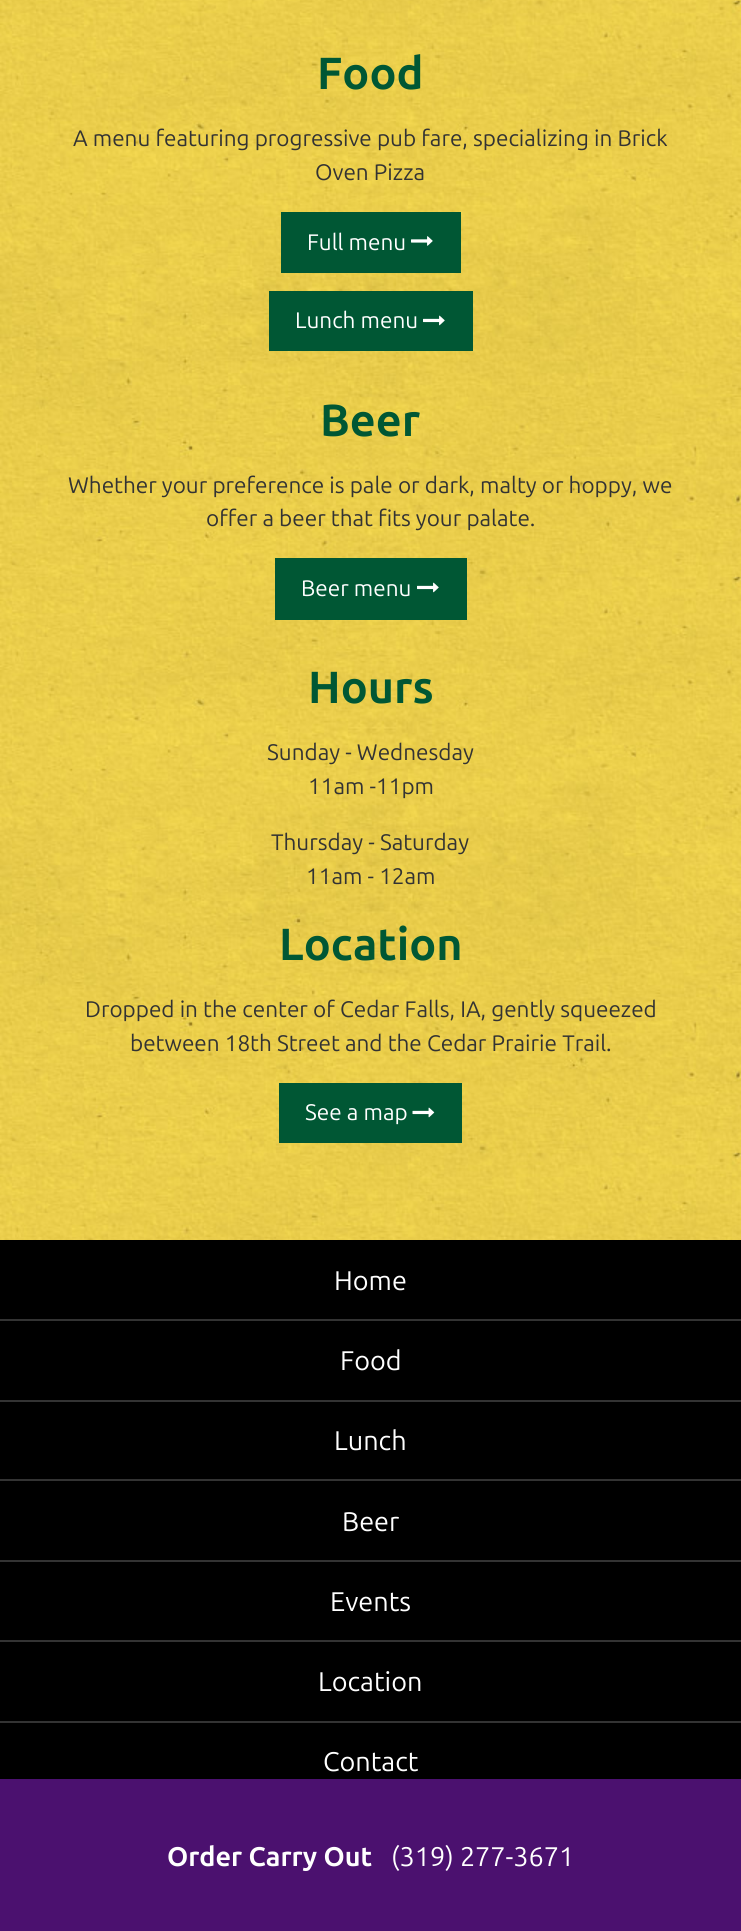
import math
import cairo

surface = cairo.ImageSurface(cairo.FORMAT_RGB24, 741, 1931)
c = cairo.Context(surface)
options = cairo.FontOptions()
options.set_hint_metrics(cairo.HINT_METRICS_OFF)
options.set_hint_style(cairo.HINT_STYLE_NONE)
c.set_font_options(options)
c.set_miter_limit(4)
def C(code):
 c.set_source_rgb(*(v / 255 for v in bytes.fromhex(code[-6:])))
def F(family, size, italic, bold):
 c.select_font_face(family, cairo.FONT_SLANT_ITALIC if italic else cairo.FONT_SLANT_NORMAL, cairo.FONT_WEIGHT_BOLD if bold else cairo.FONT_WEIGHT_NORMAL)
 c.set_font_size(size)
def T(x, y, s):
 c.move_to(x, y)
 c.show_text(s)
def R(x, y, w, h):
 c.rectangle(x, y, w, h)
 c.fill()
def I(path, x, y, w, h):
 c.save()
 c.set_source_surface(cairo.ImageSurface.create_from_png(path), x, y)
 c.rectangle(x, y, w, h)
 c.fill()
 c.restore()
C('000000')
c.paint()
I('1.png',0,0,741,1240)
F('Ubuntu',45,0,1)
C('005734')
T(317,89,'Food')
F('Ubuntu',22.5,0,0)
C('333333')
T(73,146,'A menu featuring progressive pub fare, specializing in Brick')
T(315,180,'Oven Pizza')
C('005734')
R(281,212,180,61)
C('ffffff')
T(307,250,'Full menu')
I('2.png',411,236,22,10)
C('005734')
R(269,291,204,60)
C('ffffff')
T(295,328,'Lunch menu')
I('3.png',423,315,22,11)
F('Ubuntu',45,0,1)
C('005734')
T(320,436,'Beer')
F('Ubuntu',22.5,0,0)
C('333333')
T(68,493,'Whether your preference is pale or dark, malty or hoppy, we')
T(206,526,'offer a beer that fits your palate.')
C('005734')
R(275,558,192,62)
C('ffffff')
T(301,596,'Beer menu')
I('3.png',417,582,22,11)
F('Ubuntu',45,0,1)
C('005734')
T(308,703,'Hours')
F('Ubuntu',22.5,0,0)
C('333333')
T(267,760,'Sunday - Wednesday')
T(308,794,'11am -11pm')
T(271,850,'Thursday - Saturday')
T(306,884,'11am - 12am')
F('Ubuntu',45,0,1)
C('005734')
T(279,960,'Location')
F('Ubuntu',22.5,0,0)
C('333333')
T(85,1017,'Dropped in the center of Cedar Falls, IA, gently squeezed')
T(130,1051,'between 18th Street and the Cedar Prairie Trail.')
C('005734')
R(279,1083,183,60)
C('ffffff')
T(305,1120,'See a map')
I('4.png',412,1107,23,11)
C('333333')
R(0,1319,741,2)
F('Ubuntu',27,0,0)
C('ffffff')
T(334,1290,'Home')
C('333333')
R(0,1400,741,2)
C('ffffff')
T(340,1370,'Food')
C('333333')
R(0,1479,741,2)
C('ffffff')
T(334,1450,'Lunch')
C('333333')
R(0,1560,741,2)
C('ffffff')
T(342,1531,'Beer')
C('333333')
R(0,1640,741,2)
C('ffffff')
T(330,1611,'Events')
C('333333')
R(0,1721,741,2)
C('ffffff')
T(318,1691,'Location')
T(323,1771,'Contact')
C('4b116f')
R(0,1779,741,152)
F('Ubuntu',27,0,1)
C('ffffff')
T(167,1866,'Order Carry Out')
F('Ubuntu',27,0,0)
T(391,1866,'(319) 277-3671')
surface.write_to_png('o.png')
